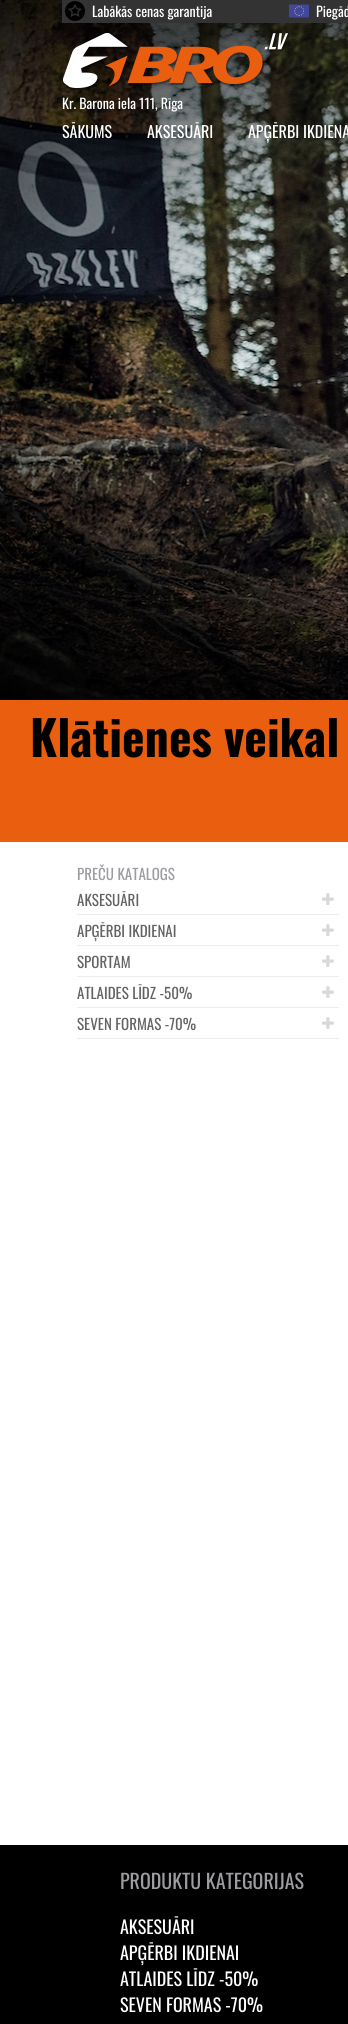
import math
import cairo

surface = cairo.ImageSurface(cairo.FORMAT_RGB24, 348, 2024)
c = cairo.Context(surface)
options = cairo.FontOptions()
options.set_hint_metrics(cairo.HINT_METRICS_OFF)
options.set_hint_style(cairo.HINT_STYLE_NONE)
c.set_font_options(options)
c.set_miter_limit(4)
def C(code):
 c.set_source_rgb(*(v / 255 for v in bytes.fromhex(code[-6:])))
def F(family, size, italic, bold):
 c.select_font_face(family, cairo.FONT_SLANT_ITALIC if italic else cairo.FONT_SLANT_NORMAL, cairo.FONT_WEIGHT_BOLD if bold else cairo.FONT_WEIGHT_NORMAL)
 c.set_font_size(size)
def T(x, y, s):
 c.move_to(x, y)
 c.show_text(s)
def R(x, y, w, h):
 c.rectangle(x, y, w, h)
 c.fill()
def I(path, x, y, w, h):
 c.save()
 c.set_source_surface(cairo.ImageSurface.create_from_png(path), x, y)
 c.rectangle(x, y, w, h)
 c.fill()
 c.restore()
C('ffffff')
c.paint()
I('1.png',0,0,348,700)
C('333333')
R(62,0,286,23)
I('2.png',65,1,20,20)
F('Oswald',14,0,0)
C('ffffff')
T(92,17,'Labākās cenas garantija')
I('3.png',289,4,20,14)
T(316,17,'Piegād')
I('4.png',63,33,226,58)
T(62,109,'Kr. Barona iela 111, Rīga')
F('Oswald',16,0,0)
T(62,138,'SĀKUMS')
T(147,138,'AKSESUĀRI')
T(248,138,'APĢĒRBI IKDIENA')
C('e95e0f')
R(0,700,348,142)
F('Oswald',48,0,1)
C('000000')
T(30,757,'Klātienes veikal')
F('Oswald',15,0,0)
C('9d9ca1')
T(77,880,'PREČU KATALOGS')
C('ededed')
R(77,914,262,1)
C('636466')
T(77,906,'AKSESUĀRI')
I('5.png',322,893,12,12)
C('ededed')
R(77,945,262,1)
C('636466')
T(77,937,'APĢĒRBI IKDIENAI')
I('5.png',322,924,12,12)
C('ededed')
R(77,976,262,1)
C('636466')
T(77,968,'SPORTAM')
I('5.png',322,955,12,12)
C('ededed')
R(77,1007,262,1)
C('636466')
T(77,999,'ATLAIDES LĪDZ -50%')
I('5.png',322,986,12,12)
C('ededed')
R(77,1038,262,1)
C('636466')
T(77,1030,'SEVEN FORMAS -70%')
I('5.png',322,1017,12,12)
C('000000')
R(0,1845,348,179)
F('Oswald',20,0,0)
C('9d9ca1')
T(120,1889,'PRODUKTU KATEGORIJAS')
F('Oswald',18,0,0)
C('ffffff')
T(120,1934,'AKSESUĀRI')
T(120,1960,'APĢĒRBI IKDIENAI')
T(120,1986,'ATLAIDES LĪDZ -50%')
T(120,2012,'SEVEN FORMAS -70%')
surface.write_to_png('o.png')
